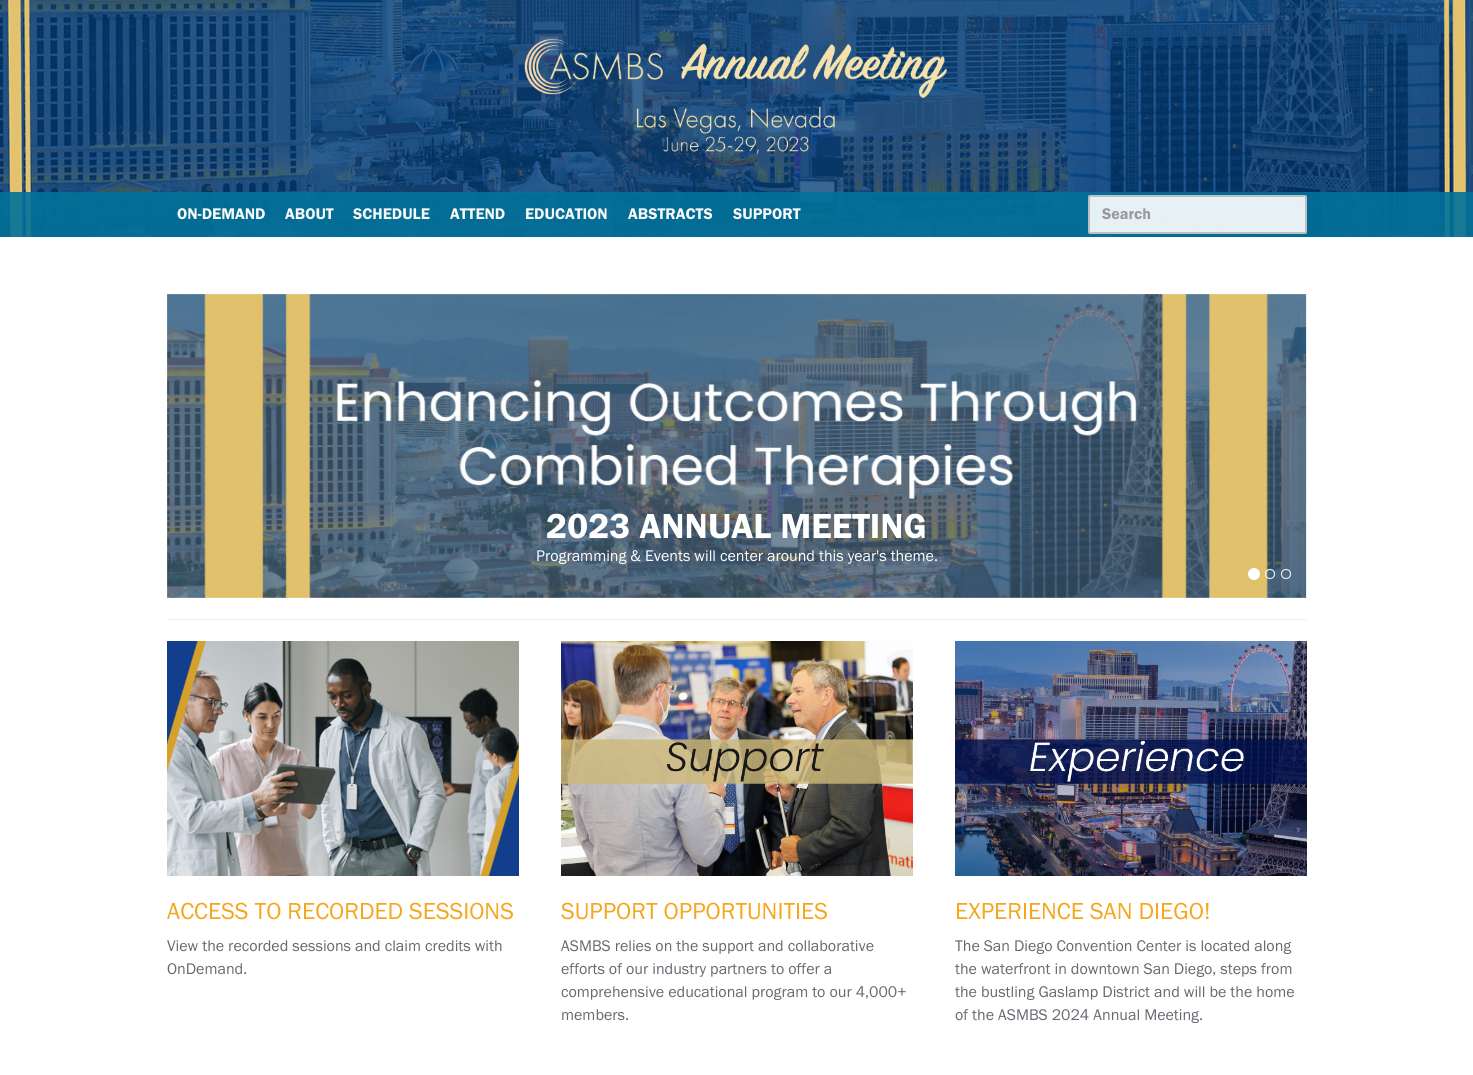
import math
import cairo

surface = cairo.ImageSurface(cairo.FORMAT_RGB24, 1473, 1075)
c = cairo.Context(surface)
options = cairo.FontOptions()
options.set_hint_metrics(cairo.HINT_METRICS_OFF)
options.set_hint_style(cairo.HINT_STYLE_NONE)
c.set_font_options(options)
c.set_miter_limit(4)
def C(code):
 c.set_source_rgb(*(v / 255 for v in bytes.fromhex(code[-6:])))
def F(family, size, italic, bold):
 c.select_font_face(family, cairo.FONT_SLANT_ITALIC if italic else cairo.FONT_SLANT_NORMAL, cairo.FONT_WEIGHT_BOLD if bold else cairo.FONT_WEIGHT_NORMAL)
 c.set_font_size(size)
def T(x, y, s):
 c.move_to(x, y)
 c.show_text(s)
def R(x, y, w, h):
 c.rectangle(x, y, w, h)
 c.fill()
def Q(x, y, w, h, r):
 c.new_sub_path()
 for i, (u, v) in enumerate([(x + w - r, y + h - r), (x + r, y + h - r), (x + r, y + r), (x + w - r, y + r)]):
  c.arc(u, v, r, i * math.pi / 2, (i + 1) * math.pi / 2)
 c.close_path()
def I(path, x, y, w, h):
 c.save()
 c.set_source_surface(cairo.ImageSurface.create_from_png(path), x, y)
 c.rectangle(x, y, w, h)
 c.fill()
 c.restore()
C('ffffff')
c.paint()
I('1.png',0,0,1473,237)
I('2.png',524,39,423,116)
c.set_source_rgba(0.012,0.443,0.6,0.9)
R(0,192,1473,45)
F('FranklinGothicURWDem',16,0,0)
C('f8f8f8')
T(177,219,'ON-DEMAND')
T(285,219,'ABOUT')
T(353,219,'SCHEDULE')
T(450,219,'ATTEND')
T(525,219,'EDUCATION')
T(628,219,'ABSTRACTS')
T(733,219,'SUPPORT')
c.set_source_rgba(1,1,1,0.9)
Q(1089,196,217,37,1)
c.fill_preserve()
C('bebec3')
c.stroke()
C('999999')
T(1102,219,'Search')
C('eeeeef')
R(167,619,1140,1)
I('3.png',167,294,1140,304)
F('FranklinGothicURWDem',36,0,0)
C('ffffff')
T(546,538,'2023 ANNUAL MEETING')
F('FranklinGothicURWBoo',16,0,0)
T(536,561,'Programming & Events will center around this year\'s theme.')
c.new_path()
c.arc(1254,574,5.5,0,2 * math.pi)
c.fill_preserve()
c.set_line_width(1)
c.stroke()
c.arc(1270,574,4.5,0,2 * math.pi)
c.stroke()
c.arc(1286,574,4.5,0,2 * math.pi)
c.stroke()
I('4.png',167,641,352,235)
F('FranklinGothicURWBoo',24,0,0)
C('f7a51c')
T(167,919,'ACCESS TO RECORDED SESSIONS')
F('FranklinGothicURWBoo',16,0,0)
C('686871')
T(167,951,'View the recorded sessions and claim credits with')
T(167,974,'OnDemand.')
I('5.png',561,641,352,235)
F('FranklinGothicURWBoo',24,0,0)
C('f7a51c')
T(561,919,'SUPPORT OPPORTUNITIES')
F('FranklinGothicURWBoo',16,0,0)
C('686871')
T(561,951,'ASMBS relies on the support and collaborative')
T(561,974,'efforts of our industry partners to offer a')
T(561,997,'comprehensive educational program to our 4,000+')
T(561,1020,'members.')
I('6.png',955,641,352,235)
F('FranklinGothicURWBoo',24,0,0)
C('f7a51c')
T(955,919,'EXPERIENCE SAN DIEGO!')
F('FranklinGothicURWBoo',16,0,0)
C('686871')
T(955,951,'The San Diego Convention Center is located along')
T(955,974,'the waterfront in downtown San Diego, steps from')
T(955,997,'the bustling Gaslamp District and will be the home')
T(955,1020,'of the ASMBS 2024 Annual Meeting.')
surface.write_to_png('o.png')
